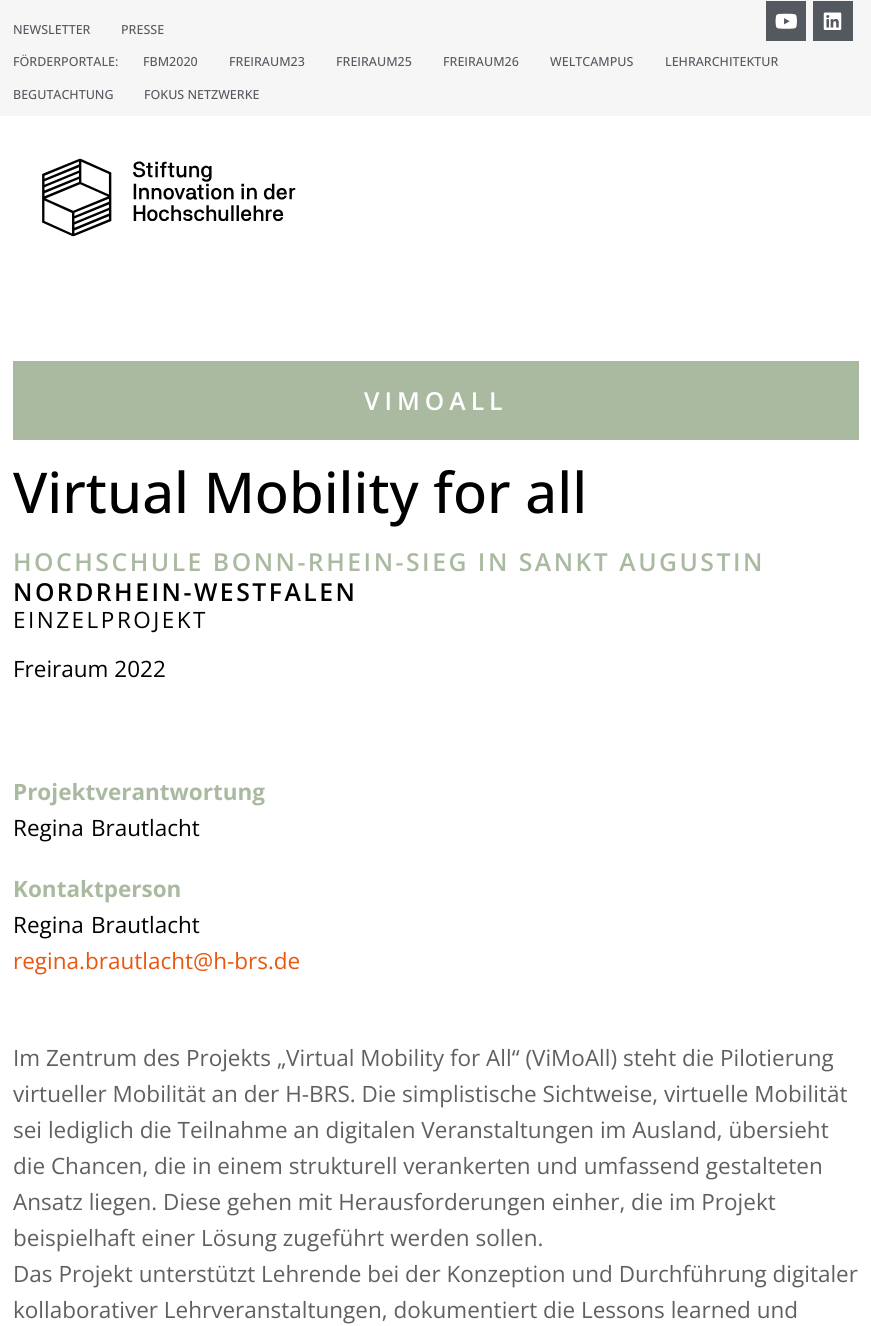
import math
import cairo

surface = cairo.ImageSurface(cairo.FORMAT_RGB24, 871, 1326)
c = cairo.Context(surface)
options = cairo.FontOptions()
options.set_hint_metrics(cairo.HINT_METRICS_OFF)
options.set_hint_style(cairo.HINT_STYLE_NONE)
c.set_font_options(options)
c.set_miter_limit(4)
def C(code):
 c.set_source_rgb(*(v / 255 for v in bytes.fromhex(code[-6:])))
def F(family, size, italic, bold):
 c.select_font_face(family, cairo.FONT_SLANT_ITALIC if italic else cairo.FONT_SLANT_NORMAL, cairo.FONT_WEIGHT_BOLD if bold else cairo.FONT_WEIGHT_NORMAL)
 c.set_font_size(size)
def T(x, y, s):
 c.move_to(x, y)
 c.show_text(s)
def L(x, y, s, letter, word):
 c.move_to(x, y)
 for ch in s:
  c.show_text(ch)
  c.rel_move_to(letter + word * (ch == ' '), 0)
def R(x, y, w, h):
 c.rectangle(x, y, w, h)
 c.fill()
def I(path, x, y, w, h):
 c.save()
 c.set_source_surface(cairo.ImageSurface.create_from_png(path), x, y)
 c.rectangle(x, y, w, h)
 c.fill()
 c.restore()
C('ffffff')
c.paint()
C('f6f6f6')
R(0,0,871,116)
F('Open Sans Medium',12.5,0,0)
C('54595f')
T(13,34,'NEWSLETTER')
T(121,34,'PRESSE')
R(766,1,40,40)
I('1.png',775,13,22,16)
R(813,1,40,40)
I('2.png',823,12,19,18)
T(13,66,'FÖRDERPORTALE:')
T(143,66,'FBM2020')
T(229,66,'FREIRAUM23')
T(336,66,'FREIRAUM25')
T(443,66,'FREIRAUM26')
T(550,66,'WELTCAMPUS')
T(665,66,'LEHRARCHITEKTUR')
T(13,99,'BEGUTACHTUNG')
T(144,99,'FOKUS NETZWERKE')
I('3.png',42,158,254,79)
C('aabaa1')
R(13,361,846,79)
F('Open Sans SemiBold',24.75,0,0)
C('ffffff')
L(364,410,'VIMOALL',5,0)
F('Open Sans Medium',56.25,0,0)
C('000000')
T(13,513,'Virtual Mobility for all')
F('Open Sans SemiBold',24.75,0,0)
C('aabaa1')
L(13,571,'HOCHSCHULE BONN-RHEIN-SIEG IN SANKT AUGUSTIN',2.5,0)
C('000000')
L(13,601,'NORDRHEIN-WESTFALEN',2.5,0)
F('Open Sans',22.5,0,0)
L(13,628,'EINZELPROJEKT',2.5,0)
T(13,677,'Freiraum 2022')
F('Open Sans',22.5,0,1)
C('aabaa1')
T(13,800,'Projektverantwortung')
F('Open Sans',22.5,0,0)
C('000000')
T(13,836,'Regina')
T(91,836,'Brautlacht')
F('Open Sans',22.5,0,1)
C('aabaa1')
T(13,897,'Kontaktperson')
F('Open Sans',22.5,0,0)
C('000000')
T(13,933,'Regina')
T(91,933,'Brautlacht')
C('ea560d')
T(13,969,'regina.brautlacht@h-brs.de')
C('606060')
T(13,1066,'Im Zentrum des Projekts „Virtual Mobility for All“ (ViMoAll) steht die Pilotierung')
T(13,1102,'virtueller Mobilität an der H-BRS. Die simplistische Sichtweise, virtuelle Mobilität')
T(13,1138,'sei lediglich die Teilnahme an digitalen Veranstaltungen im Ausland, übersieht')
T(13,1174,'die Chancen, die in einem strukturell verankerten und umfassend gestalteten')
T(13,1210,'Ansatz liegen. Diese gehen mit Herausforderungen einher, die im Projekt')
T(13,1246,'beispielhaft einer Lösung zugeführt werden sollen.')
T(13,1282,'Das Projekt unterstützt Lehrende bei der Konzeption und Durchführung digitaler')
T(13,1318,'kollaborativer Lehrveranstaltungen, dokumentiert die Lessons learned und')
surface.write_to_png('o.png')
